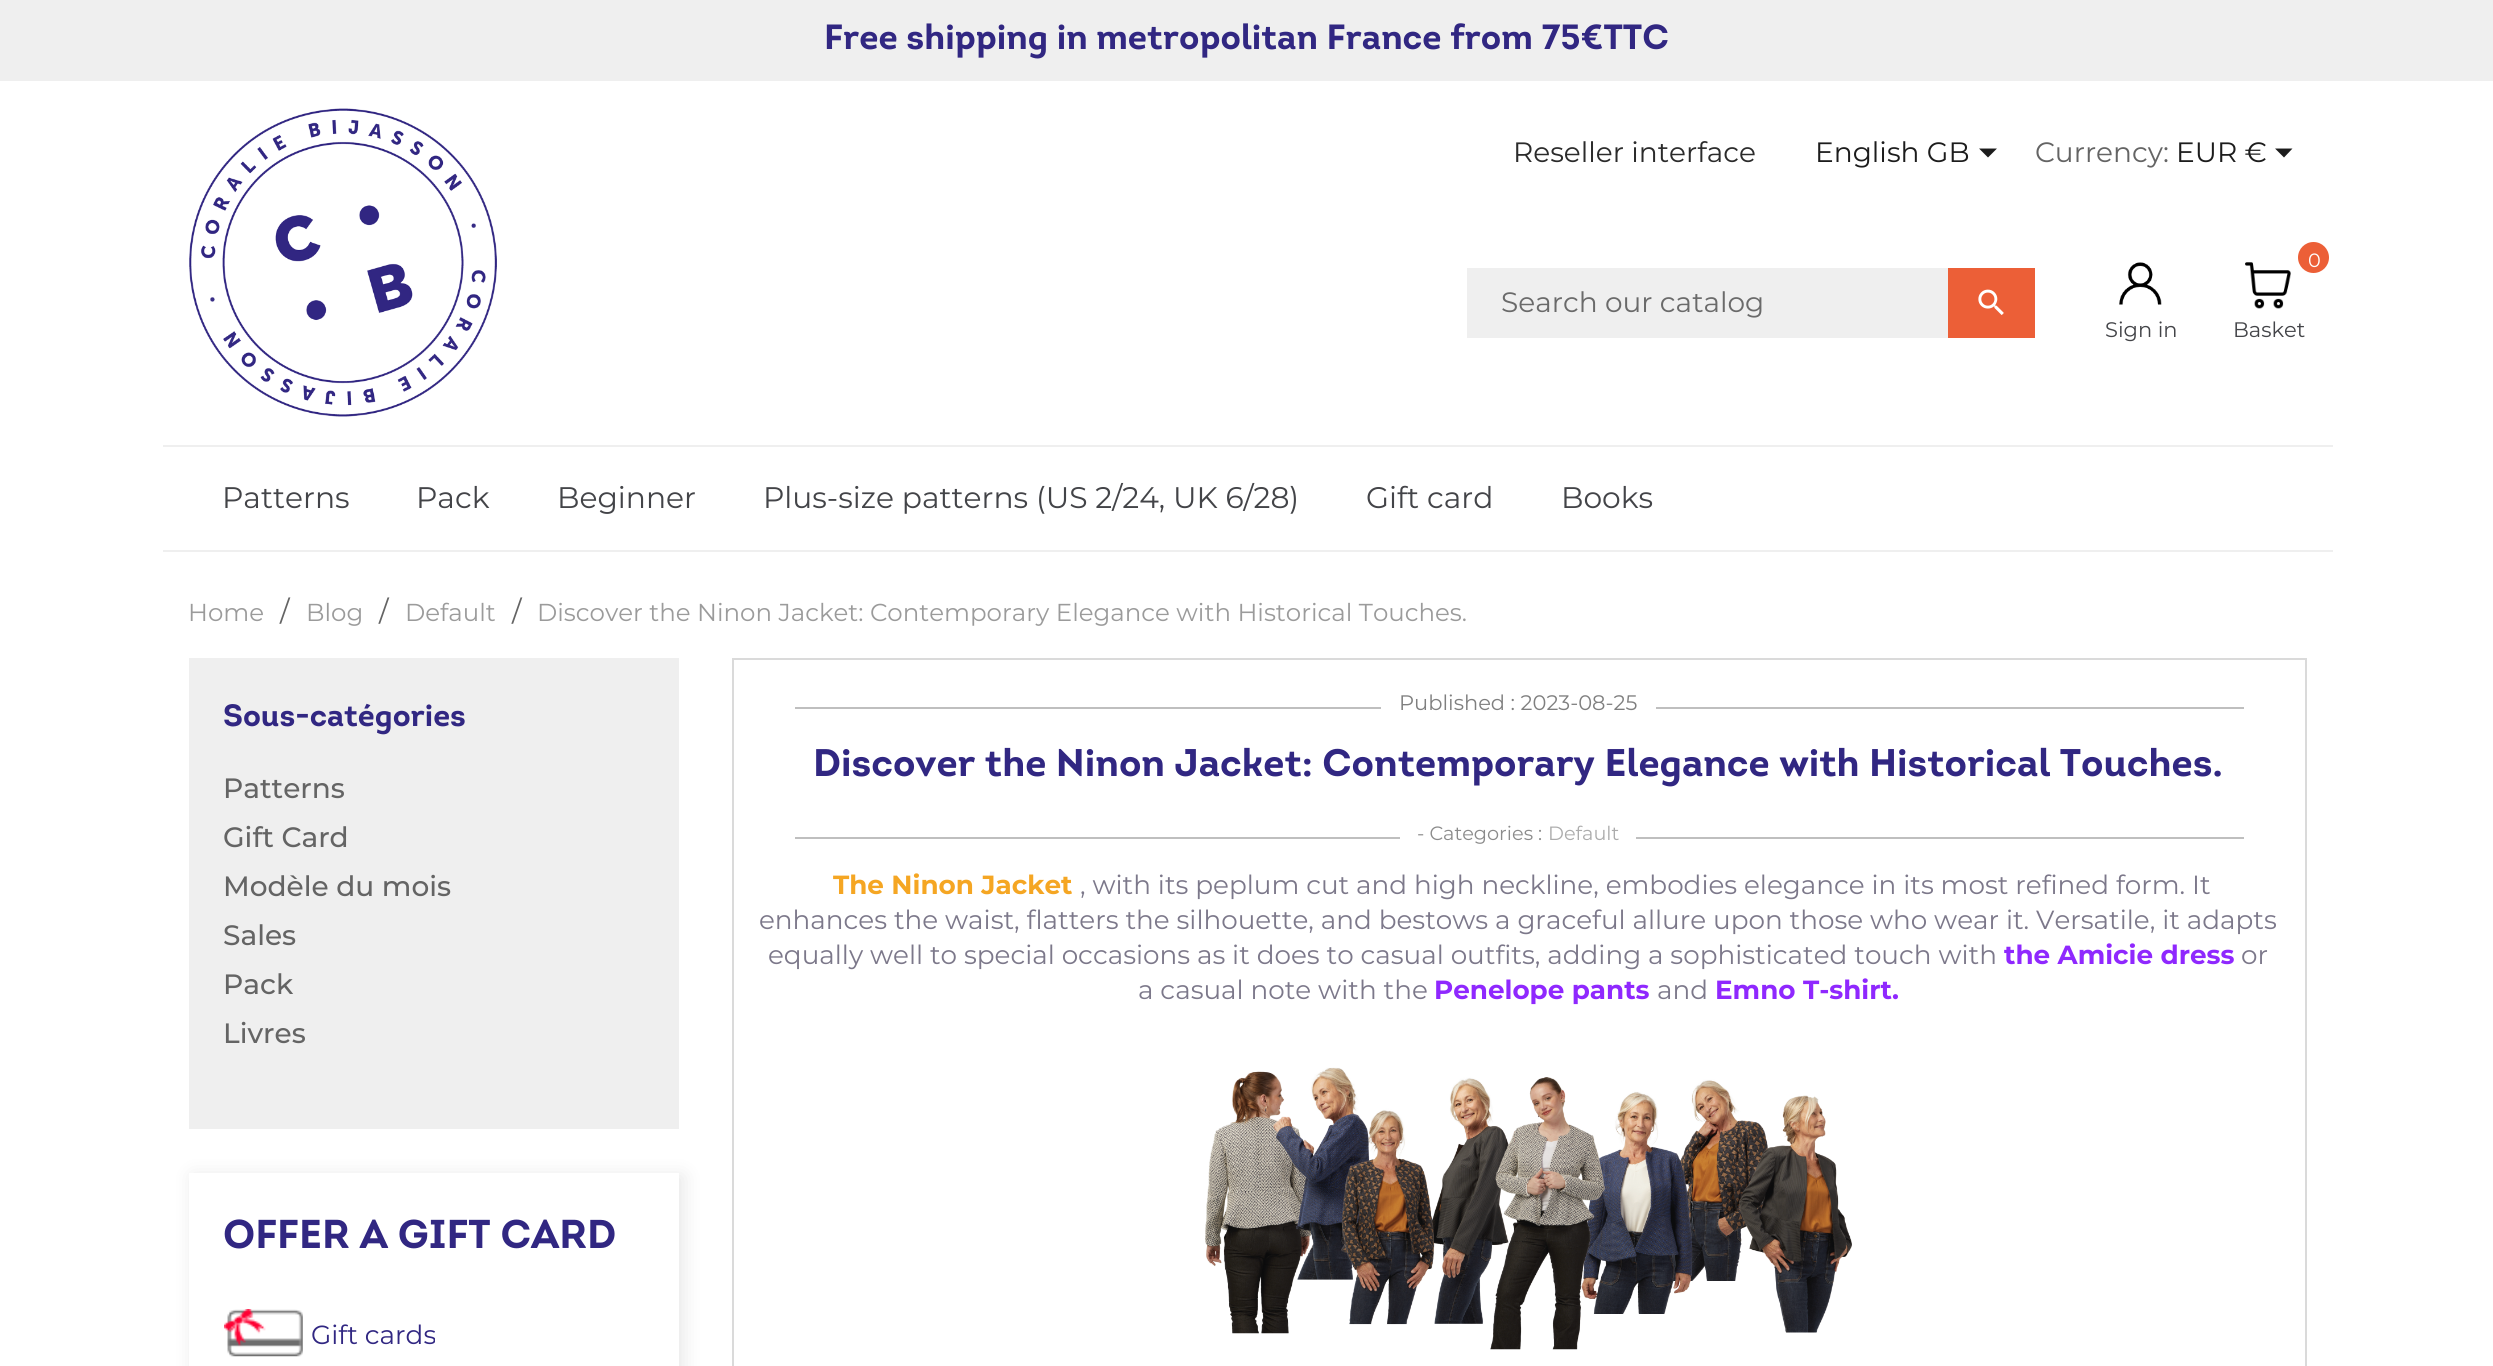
import math
import cairo

surface = cairo.ImageSurface(cairo.FORMAT_RGB24, 2493, 1366)
c = cairo.Context(surface)
options = cairo.FontOptions()
options.set_hint_metrics(cairo.HINT_METRICS_OFF)
options.set_hint_style(cairo.HINT_STYLE_NONE)
c.set_font_options(options)
c.set_miter_limit(4)
def C(code):
 c.set_source_rgb(*(v / 255 for v in bytes.fromhex(code[-6:])))
def F(family, size, italic, bold):
 c.select_font_face(family, cairo.FONT_SLANT_ITALIC if italic else cairo.FONT_SLANT_NORMAL, cairo.FONT_WEIGHT_BOLD if bold else cairo.FONT_WEIGHT_NORMAL)
 c.set_font_size(size)
def T(x, y, s):
 c.move_to(x, y)
 c.show_text(s)
def R(x, y, w, h):
 c.rectangle(x, y, w, h)
 c.fill()
def Q(x, y, w, h, r):
 c.new_sub_path()
 for i, (u, v) in enumerate([(x + w - r, y + h - r), (x + r, y + h - r), (x + r, y + r), (x + w - r, y + r)]):
  c.arc(u, v, r, i * math.pi / 2, (i + 1) * math.pi / 2)
 c.close_path()
def S(x, y, w, h, r, blur, alpha):
 c.push_group_with_content(cairo.CONTENT_ALPHA)
 c.set_operator(cairo.OPERATOR_SOURCE)
 for i in range(15, -16, -2):
  e = blur * i / 6
  if min(w, h) + 2 * e > 0:
   c.set_source_rgba(0, 0, 0, alpha * math.erfc((i - 1) / 8.5) / 2)
   Q(x - e, y - e, w + 2 * e, h + 2 * e, max(0, min(r + e + blur * .6, min(w, h) / 2 + e)))
   c.fill()
 c.mask(c.pop_group())
def I(path, x, y, w, h):
 c.save()
 c.set_source_surface(cairo.ImageSurface.create_from_png(path), x, y)
 c.rectangle(x, y, w, h)
 c.fill()
 c.restore()
C('ffffff')
c.paint()
C('efefef')
R(0,0,2493,81)
F('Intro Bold',35,0,1)
C('312782')
T(824,49,'Free shipping in metropolitan France from 75€TTC')
I('1.png',189,108,308,309)
F('Montserrat',28,0,0)
C('2b2b2b')
T(1513,162,'Reseller interface')
C('1c1c1c')
T(1815,162,'English GB')
c.new_path()
c.move_to(1979,148.5)
c.line_to(1997,148.5)
c.line_to(1988,157.5)
c.close_path()
c.fill()
C('646464')
T(2035,162,'Currency:')
C('1c1c1c')
T(2176,162,'EUR €')
c.new_path()
c.move_to(2275,148.5)
c.line_to(2292.5,148.5)
c.line_to(2284,157.5)
c.close_path()
c.fill()
C('efefef')
R(1467,268,481,70)
C('6a6a6a')
T(1501,312,'Search our catalog')
C('ec5f37')
R(1948,268,87,70)
I('2.png',1978,289,26,26)
c.arc(2313.5,257.5,15.5,0,2 * math.pi)
c.fill()
F('Montserrat',19.25,0,0)
C('ffffff')
T(2308,267,'0')
F('Montserrat',21,0,0)
C('434448')
T(2233,337,'Basket')
I('3.png',2245,262,46,47)
I('4.png',2119,262,43,43)
T(2105,337,'Sign in')
C('efefef')
R(163,445,2170,2)
R(163,550,2170,2)
F('Montserrat',29.75,0,0)
C('434448')
T(222,508,'Patterns')
T(416,508,'Pack')
T(557,508,'Beginner')
T(763,508,'Plus-size patterns (US 2/24, UK 6/28)')
T(1366,508,'Gift card')
T(1561,508,'Books')
F('Montserrat',24.5,0,0)
C('9b9b9b')
T(188,621,'Home')
F('Montserrat',28,0,0)
C('646464')
T(280,621,'/')
F('Montserrat',24.5,0,0)
C('9b9b9b')
T(306,621,'Blog')
F('Montserrat',28,0,0)
C('646464')
T(379,621,'/')
F('Montserrat',24.5,0,0)
C('9b9b9b')
T(405,621,'Default')
F('Montserrat',28,0,0)
C('646464')
T(512,621,'/')
F('Montserrat',24.5,0,0)
C('9b9b9b')
T(537,621,'Discover the Ninon Jacket: Contemporary Elegance with Historical Touches.')
C('efefef')
R(189,658,490,471)
F('Intro Bold',30.75,0,1)
C('312782')
T(223,726,'Sous-catégories')
F('Montserrat Medium',28,0,0)
C('646464')
T(223,798,'Patterns')
T(223,847,'Gift Card')
T(223,896,'Modèle du mois')
T(223,945,'Sales')
T(223,994,'Pack')
T(223,1043,'Livres')
c.save()
c.set_fill_rule(cairo.FILL_RULE_EVEN_ODD)
c.new_path()
c.move_to(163,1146)
c.line_to(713,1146)
c.line_to(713,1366)
c.line_to(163,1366)
c.close_path()
c.move_to(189,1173)
c.line_to(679,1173)
c.line_to(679,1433)
c.line_to(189,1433)
c.close_path()
c.clip()
C('000000')
S(193,1176,490,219,0,9.5,.1)
c.restore()
F('Intro Bold',40.25,0,1)
C('312782')
T(223,1248,'OFFER A GIFT CARD')
I('5.png',224,1309,79,48)
F('Montserrat',26.25,0,0)
T(311,1344,'Gift cards')
c.rectangle(733,659,1573,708)
C('dadada')
c.stroke()
C('bfbfbf')
R(795,707,1449,2)
C('ffffff')
R(1381,707,275,2)
F('Montserrat',21,0,0)
C('7f7f7f')
T(1399,710,'Published : 2023-08-25')
F('Intro Bold',38.5,0,1)
C('312782')
T(813,776,'Discover the Ninon Jacket: Contemporary Elegance with Historical Touches.')
C('bfbfbf')
R(795,837,1449,2)
C('ffffff')
R(1400,837,236,2)
F('Montserrat',19.25,0,0)
C('8b8b8b')
T(1417,840,'- Categories :')
C('acacac')
T(1548,840,'Default')
F('Montserrat',26.25,0,1)
C('f5a623')
T(833,894,'The Ninon Jacket')
F('Montserrat',26.25,0,0)
C('7c788a')
T(1080,894,', with its peplum cut and high neckline, embodies elegance in its most refined form. It')
T(759,929,'enhances the waist, flatters the silhouette, and bestows a graceful allure upon those who wear it. Versatile, it adapts')
T(768,964,'equally well to special occasions as it does to casual outfits, adding a sophisticated touch with')
F('Montserrat',26.25,0,1)
C('8f28fe')
T(2004,964,'the Amicie dress')
F('Montserrat',26.25,0,0)
C('7c788a')
T(2241,964,'or')
T(1138,999,'a casual note with the')
F('Montserrat',26.25,0,1)
C('8f28fe')
T(1434,999,'Penelope pants')
F('Montserrat',26.25,0,0)
C('7c788a')
T(1657,999,'and')
F('Montserrat',26.25,0,1)
C('8f28fe')
T(1715,999,'Emno T-shirt.')
I('6.png',1205,1067,647,283)
surface.write_to_png('o.png')
